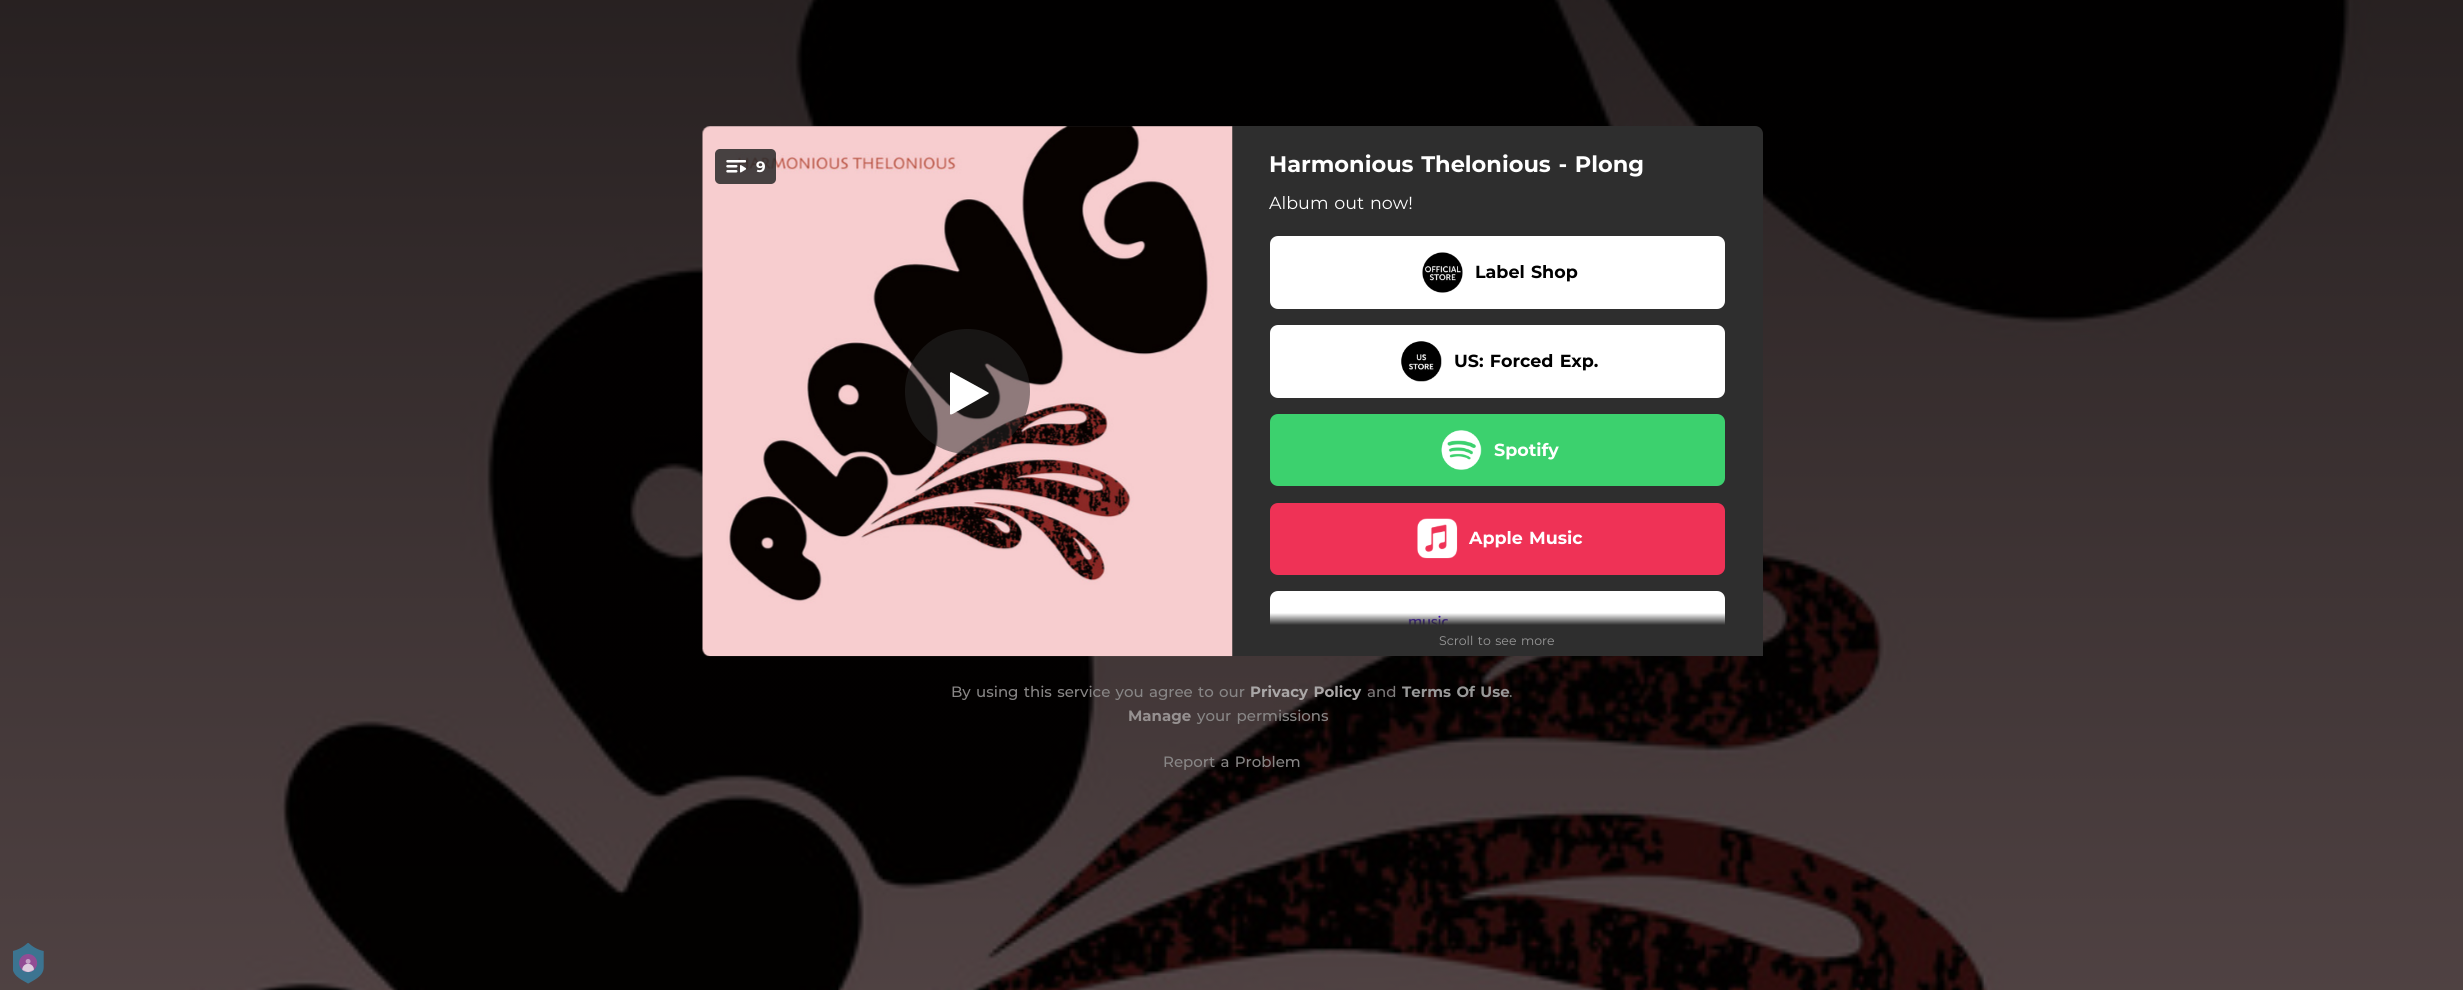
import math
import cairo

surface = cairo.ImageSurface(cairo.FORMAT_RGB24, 2463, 990)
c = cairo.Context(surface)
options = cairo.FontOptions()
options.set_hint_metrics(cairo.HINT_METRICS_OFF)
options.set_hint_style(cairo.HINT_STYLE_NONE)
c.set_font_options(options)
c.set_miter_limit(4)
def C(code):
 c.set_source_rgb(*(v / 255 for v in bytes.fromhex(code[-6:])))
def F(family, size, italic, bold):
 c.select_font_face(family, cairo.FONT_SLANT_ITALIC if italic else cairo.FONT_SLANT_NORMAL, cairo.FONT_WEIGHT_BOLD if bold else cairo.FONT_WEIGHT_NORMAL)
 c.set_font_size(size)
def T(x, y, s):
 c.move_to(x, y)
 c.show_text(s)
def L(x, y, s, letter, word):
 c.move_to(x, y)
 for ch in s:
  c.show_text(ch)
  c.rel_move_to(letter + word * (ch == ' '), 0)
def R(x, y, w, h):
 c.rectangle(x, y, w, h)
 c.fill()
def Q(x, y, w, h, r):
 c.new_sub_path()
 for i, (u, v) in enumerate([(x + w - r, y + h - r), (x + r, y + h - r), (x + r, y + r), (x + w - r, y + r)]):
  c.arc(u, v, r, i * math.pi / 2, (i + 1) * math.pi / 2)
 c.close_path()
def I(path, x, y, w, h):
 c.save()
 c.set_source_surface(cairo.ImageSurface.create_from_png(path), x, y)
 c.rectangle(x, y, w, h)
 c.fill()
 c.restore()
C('ffffff')
c.paint()
I('1.png',0,0,2463,990)
C('2f2f2f')
c.new_path()
c.move_to(711,126)
c.line_to(1233,126)
c.line_to(1233,656)
c.line_to(711,656)
c.curve_to(706.5,656,703,652.5,703,648)
c.line_to(703,134)
c.curve_to(703,129.5,706.5,126,711,126)
c.close_path()
c.fill()
I('2.png',702,126,531,531)
c.set_source_rgba(0.157,0.157,0.157,0.85)
Q(715,149,61,35,5)
c.fill()
I('3.png',726,160,20,13)
F('Montserrat',15,0,1)
C('ffffff')
T(756,172,'9')
c.set_source_rgba(0.157,0.157,0.157,0.5)
c.new_path()
c.arc(967.5,391.5,62.5,0,2 * math.pi)
c.fill()
C('ffffff')
c.new_path()
c.move_to(988,394)
c.line_to(958,411)
c.curve_to(957,411,951,416,950,414)
c.line_to(950,373)
c.line_to(951,372)
c.line_to(982,389)
c.line_to(989,393)
c.line_to(988,394)
c.fill()
C('2e2e2e')
c.new_path()
c.move_to(1233,126)
c.line_to(1755,126)
c.curve_to(1759.5,126,1763,129.5,1763,134)
c.line_to(1763,648)
c.curve_to(1763,652.5,1759.5,656,1755,656)
c.line_to(1233,656)
c.close_path()
c.fill()
F('Montserrat',22.5,0,1)
C('ffffff')
L(1269,172,'Harmonious Thelonious - Plong',0,1.25)
F('Montserrat',17.5,0,0)
L(1269,209,'Album out now!',0,1.25)
Q(1270,236,455,73,8)
c.fill()
I('4.png',1422,252,41,41)
F('Montserrat',17.5,0,1)
C('000000')
L(1475,278,'Label Shop',0,1.25)
C('ffffff')
Q(1270,325,455,73,8)
c.fill()
I('5.png',1401,341,41,41)
C('000000')
L(1454,367,'US: Forced Exp.',0,1.25)
C('3cd16e')
Q(1270,414,455,72,8)
c.fill()
I('6.png',1441,430,41,40)
C('ffffff')
T(1494,456,'Spotify')
C('ef3256')
Q(1270,503,455,72,8)
c.fill()
I('7.png',1417,518,41,41)
C('ffffff')
L(1469,544,'Apple Music',0,1.25)
c.new_path()
c.move_to(1278,591)
c.line_to(1717,591)
c.curve_to(1721.5,591,1725,594.5,1725,599)
c.line_to(1725,656)
c.line_to(1270,656)
c.line_to(1270,599)
c.curve_to(1270,594.5,1273.5,591,1278,591)
c.close_path()
c.fill()
I('8.png',1408,615,40,10)
gradient = cairo.LinearGradient(1498,625,1498,613)
gradient.add_color_stop_rgba(0,0.18,0.18,0.18,1)
gradient.add_color_stop_rgba(1,0.18,0.18,0.18,0)
c.set_source(gradient)
R(1270,613,455,12)
C('2e2e2e')
R(1270,625,493,31)
F('Montserrat',12.5,0,0)
C('999999')
L(1439,645,'Scroll to see more',0,1.25)
F('Montserrat Medium',15,0,0)
C('888686')
L(951,697,'By using this service you agree to our',0,1.25)
F('Montserrat',15,0,1)
C('aaa7a7')
L(1250,697,'Privacy Policy',0,1.25)
F('Montserrat Medium',15,0,0)
C('7d7b7b')
T(1367,697,'and')
F('Montserrat',15,0,1)
C('999999')
L(1402,697,'Terms Of Use',0,1.25)
F('Montserrat Medium',15,0,0)
C('7d7b7b')
T(1509,697,'.')
F('Montserrat',15,0,1)
C('969191')
T(1128,721,'Manage')
F('Montserrat Medium',15,0,0)
C('888686')
L(1197,721,'your permissions',0,1.25)
L(1163,767,'Report a Problem',0,1.25)
I('9.png',13,943,31,41)
surface.write_to_png('o.png')
